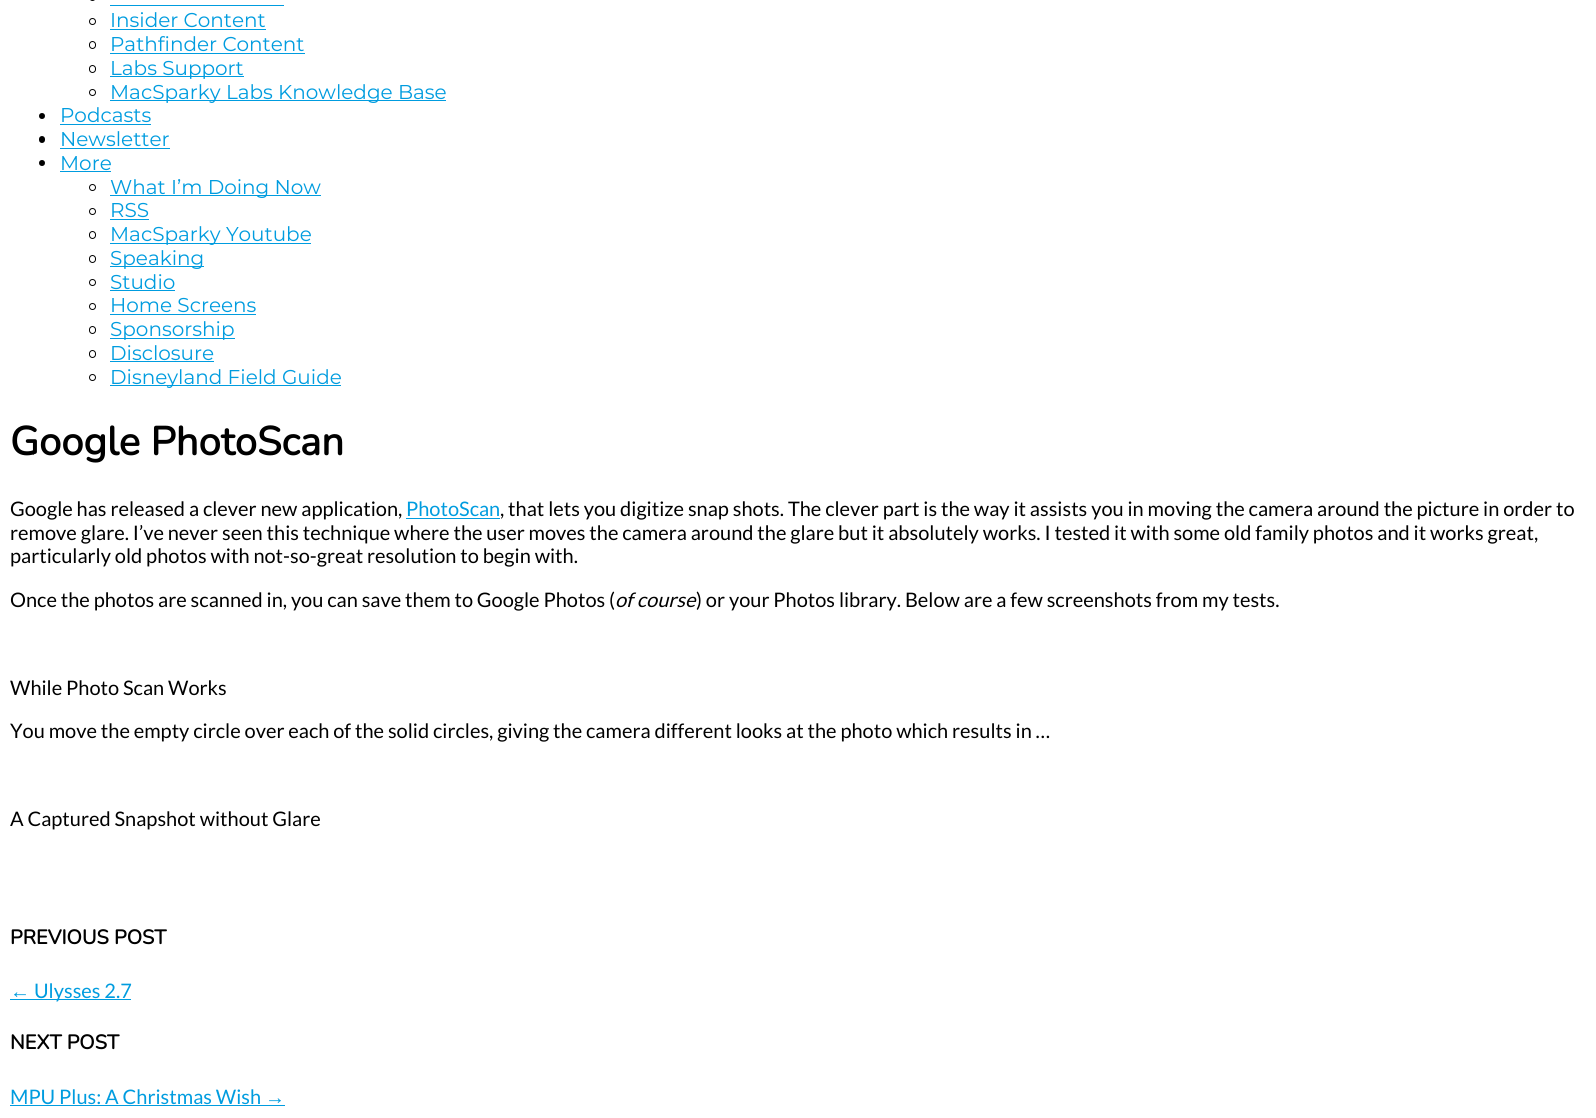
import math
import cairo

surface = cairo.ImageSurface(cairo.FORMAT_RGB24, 1596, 1118)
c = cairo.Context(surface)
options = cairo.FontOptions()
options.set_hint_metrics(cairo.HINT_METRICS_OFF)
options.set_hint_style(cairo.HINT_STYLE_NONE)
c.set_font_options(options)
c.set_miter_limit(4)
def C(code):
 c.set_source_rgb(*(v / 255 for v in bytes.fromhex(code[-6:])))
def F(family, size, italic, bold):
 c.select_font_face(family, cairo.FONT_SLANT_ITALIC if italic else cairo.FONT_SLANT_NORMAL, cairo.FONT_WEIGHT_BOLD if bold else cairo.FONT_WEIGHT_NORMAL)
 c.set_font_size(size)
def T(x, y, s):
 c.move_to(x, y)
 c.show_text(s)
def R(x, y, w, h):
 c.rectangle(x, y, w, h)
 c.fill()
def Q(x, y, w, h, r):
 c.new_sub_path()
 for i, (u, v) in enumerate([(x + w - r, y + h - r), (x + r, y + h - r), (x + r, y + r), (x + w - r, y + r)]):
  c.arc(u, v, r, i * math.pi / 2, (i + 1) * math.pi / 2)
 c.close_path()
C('ffffff')
c.paint()
Q(89.5,-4.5,6,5,3)
C('000000')
c.set_line_width(1)
c.stroke()
C('009cdf')
R(110,5,174,1)
c.arc(92.5,21.5,3,0,2 * math.pi)
C('000000')
c.stroke()
F('Montserrat Thin',20,0,0)
C('009cdf')
T(110,27,'Insider Content')
R(110,29,156,1)
Q(89.5,41.5,6,7,3)
C('000000')
c.stroke()
C('009cdf')
T(110,51,'Pathfinder Content')
R(110,53,195,1)
Q(89.5,65.5,6,7,3)
C('000000')
c.stroke()
C('009cdf')
R(110,76,134,1)
T(110,75,'Labs Support')
c.new_path()
c.arc(92.5,92.5,3,0,2 * math.pi)
C('000000')
c.stroke()
C('009cdf')
R(110,100,336,1)
T(110,99,'MacSparky Labs Knowledge Base')
C('000000')
c.new_path()
c.arc(42,116,3,0,2 * math.pi)
c.fill()
C('009cdf')
T(60,122,'Podcasts')
R(60,124,91,1)
C('000000')
Q(39,136,6,7,3)
c.fill()
C('009cdf')
T(60,146,'Newsletter')
R(60,148,110,1)
C('000000')
c.new_path()
c.arc(42,163,3,0,2 * math.pi)
c.fill()
C('009cdf')
T(60,170,'More')
R(60,171,51,1)
c.new_path()
c.arc(92.5,187.5,3,0,2 * math.pi)
C('000000')
c.stroke()
C('009cdf')
R(110,195,211,1)
T(110,194,'What I’m Doing Now')
c.new_path()
c.arc(92.5,211.5,3,0,2 * math.pi)
C('000000')
c.stroke()
C('009cdf')
T(110,217,'RSS')
R(110,219,39,1)
Q(89.5,231.5,6,7,3)
C('000000')
c.stroke()
C('009cdf')
R(110,243,201,1)
T(110,241,'MacSparky Youtube')
Q(89.5,255.5,6,7,3)
C('000000')
c.stroke()
C('009cdf')
R(110,266,94,1)
T(110,265,'Speaking')
c.new_path()
c.arc(92.5,282.5,3,0,2 * math.pi)
C('000000')
c.stroke()
C('009cdf')
T(110,289,'Studio')
R(110,290,65,1)
c.new_path()
c.arc(92.5,306.5,3,0,2 * math.pi)
C('000000')
c.stroke()
C('009cdf')
T(110,312,'Home Screens')
R(110,314,146,1)
Q(89.5,326.5,6,7,3)
C('000000')
c.stroke()
C('009cdf')
R(110,338,125,1)
T(110,336,'Sponsorship')
Q(89.5,350.5,6,7,3)
C('000000')
c.stroke()
C('009cdf')
T(110,360,'Disclosure')
R(110,361,104,1)
c.new_path()
c.arc(92.5,377.5,3,0,2 * math.pi)
C('000000')
c.stroke()
C('009cdf')
R(110,385,231,1)
T(110,384,'Disneyland Field Guide')
F('Nunito',40,0,1)
C('000000')
T(10,455,'Google PhotoScan')
F('Lato',20,0,0)
T(10,516,'Google has released a clever new application,')
C('009cdf')
T(406,516,'PhotoScan')
R(406,518,94,1)
C('000000')
T(500,516,', that lets you digitize snap shots. The clever part is the way it assists you in moving the camera around the picture in order to')
T(10,540,'remove glare. I’ve never seen this technique where the user moves the camera around the glare but it absolutely works. I tested it with some old family photos and it works great,')
T(10,563,'particularly old photos with not-so-great resolution to begin with.')
T(10,607,'Once the photos are scanned in, you can save them to Google Photos (')
F('Lato',20,1,0)
T(615,607,'of course')
F('Lato',20,0,0)
T(696,607,') or your Photos library. Below are a few screenshots from my tests.')
T(10,695,'While Photo Scan Works')
T(10,738,'You move the empty circle over each of the solid circles, giving the camera different looks at the photo which results in …')
T(10,826,'A Captured Snapshot without Glare')
F('Nunito',20,0,1)
T(10,944,'PREVIOUS POST')
F('Liberation Serif',20,0,0)
C('009cdf')
T(10,998,'←')
R(10,999,121,1)
F('Lato',20,0,0)
T(34,998,'Ulysses 2.7')
F('Nunito',20,0,1)
C('000000')
T(10,1049,'NEXT POST')
F('Lato',20,0,0)
C('009cdf')
T(10,1104,'MPU Plus: A Christmas Wish')
F('Liberation Serif',20,0,0)
T(265,1104,'→')
R(10,1105,275,1)
surface.write_to_png('o.png')
